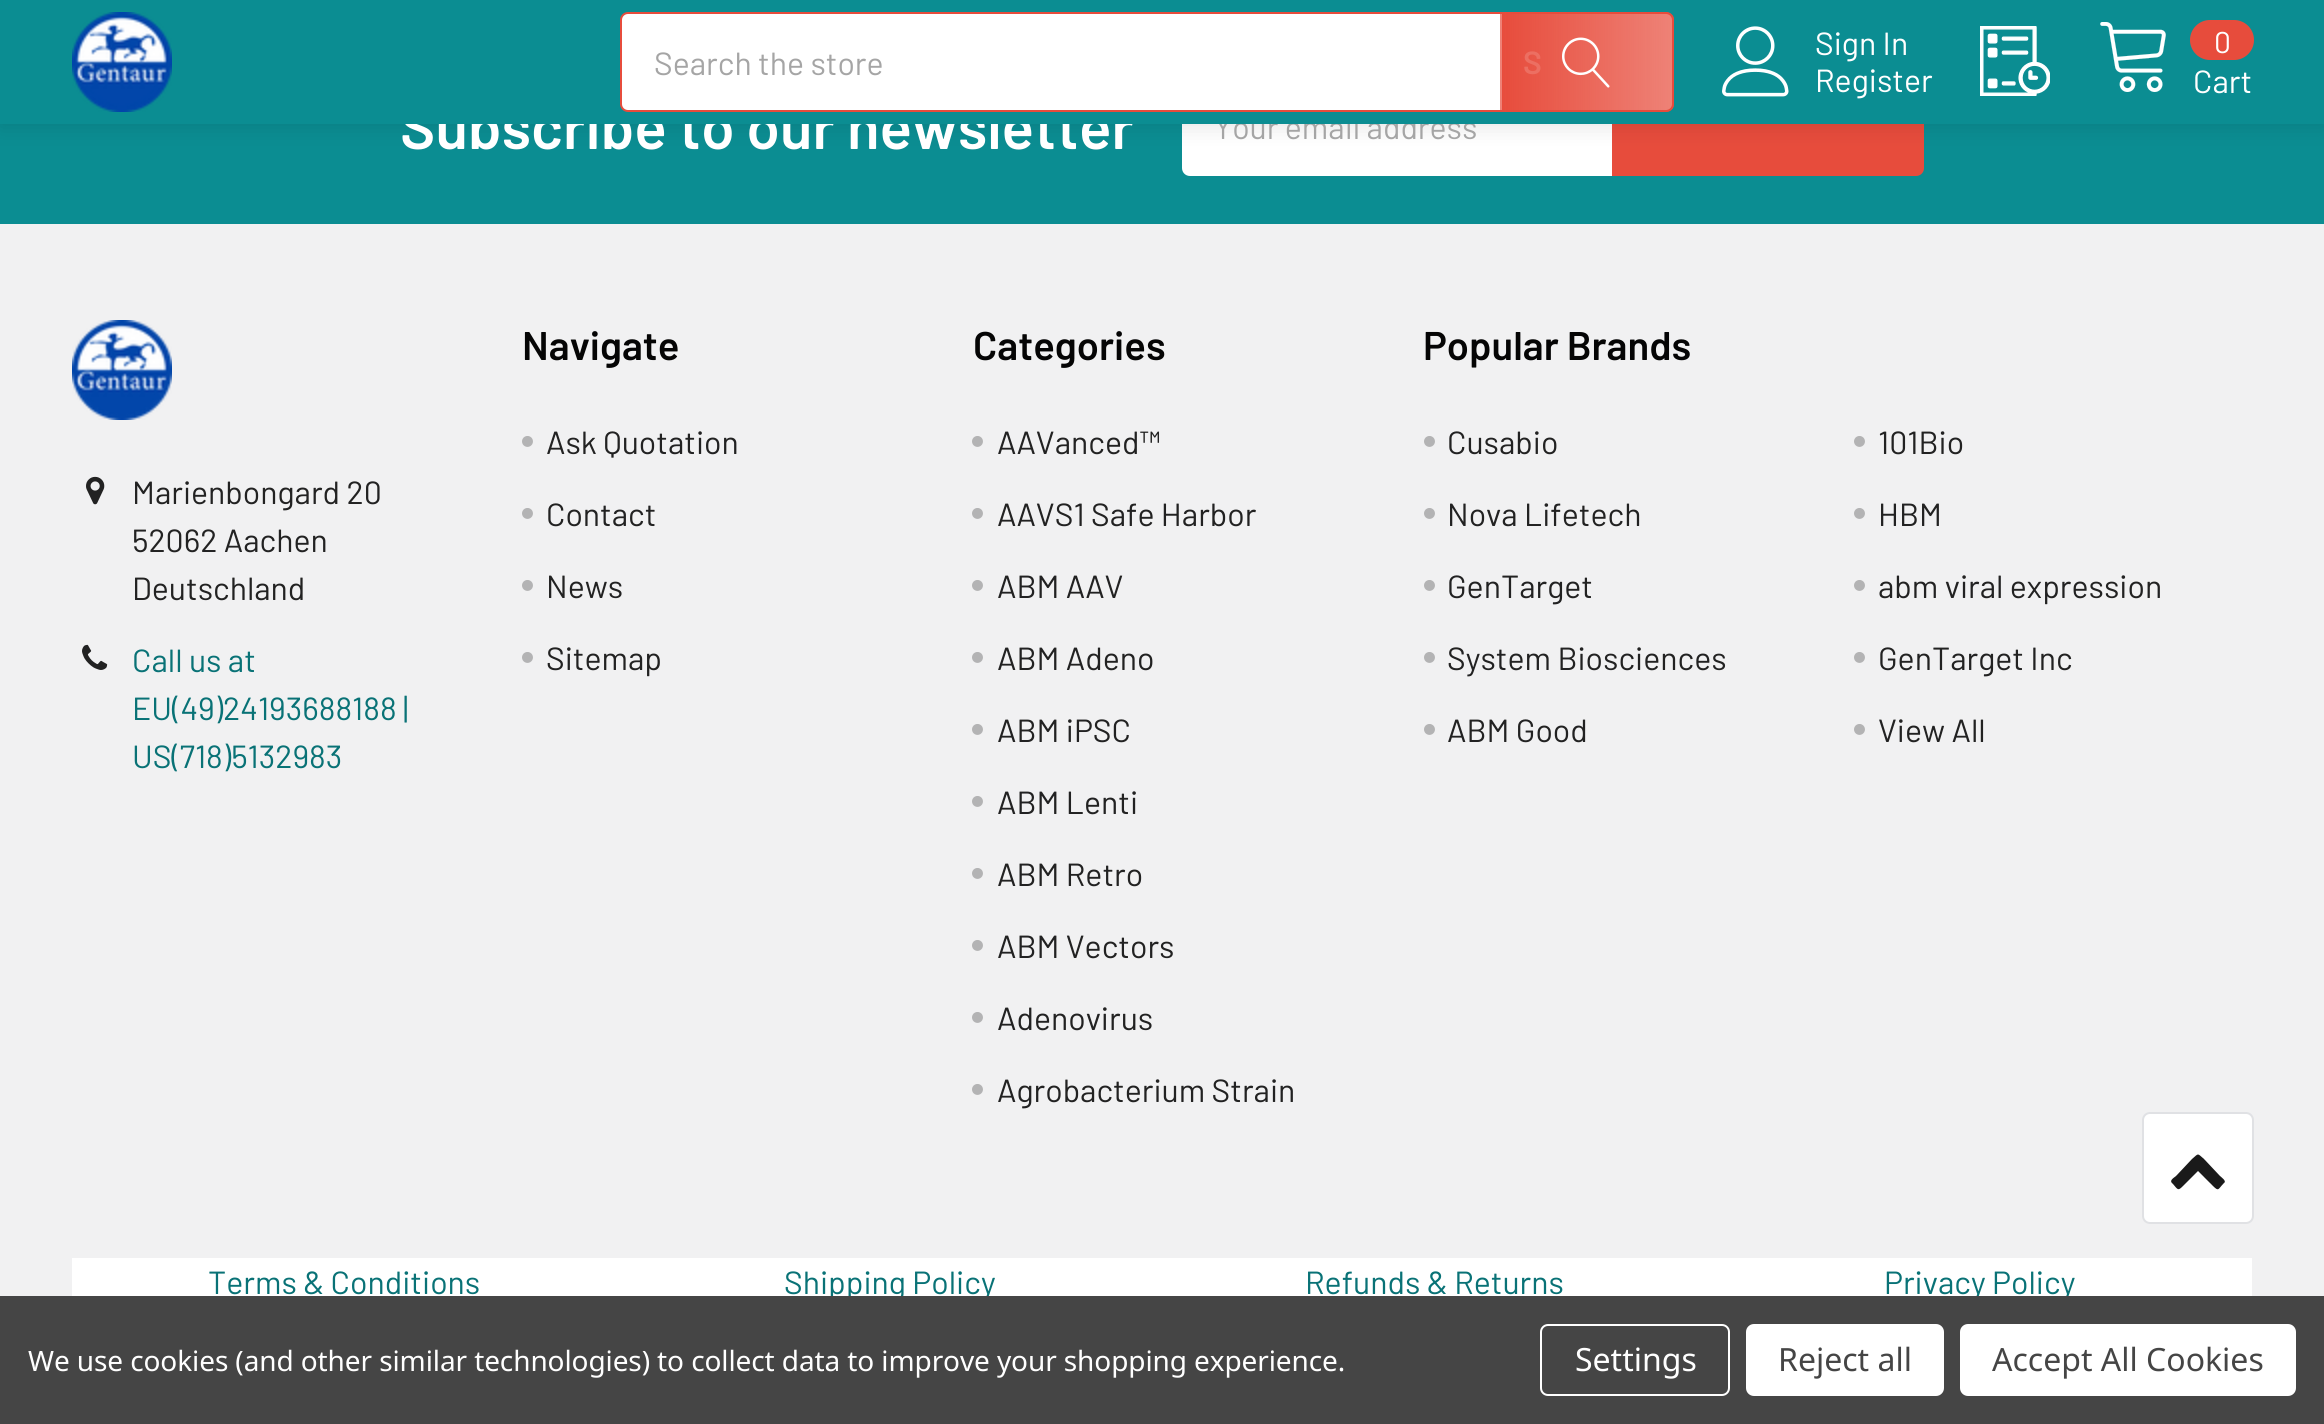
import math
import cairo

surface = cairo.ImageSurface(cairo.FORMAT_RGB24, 2324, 1424)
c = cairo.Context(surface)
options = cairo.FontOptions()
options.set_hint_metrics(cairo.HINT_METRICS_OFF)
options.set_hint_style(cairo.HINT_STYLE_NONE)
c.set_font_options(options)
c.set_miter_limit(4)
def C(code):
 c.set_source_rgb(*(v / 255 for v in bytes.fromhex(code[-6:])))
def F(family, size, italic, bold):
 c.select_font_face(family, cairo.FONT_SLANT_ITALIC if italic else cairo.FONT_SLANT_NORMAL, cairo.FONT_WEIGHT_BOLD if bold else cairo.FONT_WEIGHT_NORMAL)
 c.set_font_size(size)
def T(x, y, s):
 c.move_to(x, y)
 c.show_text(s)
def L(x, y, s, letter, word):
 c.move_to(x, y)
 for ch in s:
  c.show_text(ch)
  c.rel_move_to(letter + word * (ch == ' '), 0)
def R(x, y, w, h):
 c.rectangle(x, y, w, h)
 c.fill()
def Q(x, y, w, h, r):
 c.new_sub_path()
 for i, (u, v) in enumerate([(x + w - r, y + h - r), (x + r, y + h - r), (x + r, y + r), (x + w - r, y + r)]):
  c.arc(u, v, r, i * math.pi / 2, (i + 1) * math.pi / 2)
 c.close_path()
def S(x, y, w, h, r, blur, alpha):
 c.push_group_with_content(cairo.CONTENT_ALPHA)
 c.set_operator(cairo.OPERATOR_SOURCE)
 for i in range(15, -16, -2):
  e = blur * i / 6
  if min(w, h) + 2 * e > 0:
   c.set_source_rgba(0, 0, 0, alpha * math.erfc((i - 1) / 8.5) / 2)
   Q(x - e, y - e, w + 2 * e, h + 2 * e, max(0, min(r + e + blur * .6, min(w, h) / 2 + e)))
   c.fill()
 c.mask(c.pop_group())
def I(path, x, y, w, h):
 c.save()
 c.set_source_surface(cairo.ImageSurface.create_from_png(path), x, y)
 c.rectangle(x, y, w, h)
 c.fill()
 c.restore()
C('f1f1f2')
c.paint()
C('0b8d92')
R(0,124,2324,100)
C('ffffff')
c.new_path()
c.move_to(1190,76)
c.line_to(1612,76)
c.line_to(1612,176)
c.line_to(1190,176)
c.curve_to(1185.5,176,1182,172.5,1182,168)
c.line_to(1182,84)
c.curve_to(1182,79.5,1185.5,76,1190,76)
c.close_path()
c.fill()
C('e74c3c')
c.new_path()
c.move_to(1613,77)
c.line_to(1916,77)
c.curve_to(1920,77,1923,80,1923,84)
c.line_to(1923,168)
c.curve_to(1923,172,1920,175,1916,175)
c.line_to(1613,175)
c.close_path()
c.fill_preserve()
c.stroke()
C('000000')
S(0,4,2324,124,0,10,.1)
F('Barlow SemiBold',60,0,0)
C('ffffff')
T(400,149,'Subscribe to our newsletter')
F('Barlow',32,0,0)
C('a5a5a5')
T(1214,139,'Your email address')
C('0b8d92')
R(0,0,2324,124)
I('1.png',72,12,100,100)
C('ffffff')
Q(621,13,1052,98,7)
c.fill_preserve()
C('e74c3c')
c.stroke()
C('a5a5a5')
T(654,75,'Search the store')
c.save()
c.new_path()
c.move_to(1500,12)
c.line_to(1666,12)
c.curve_to(1670.5,12,1674,15.5,1674,20)
c.line_to(1674,104)
c.curve_to(1674,108.5,1670.5,112,1666,112)
c.line_to(1500,112)
c.close_path()
c.clip()
gradient = cairo.LinearGradient(1502,62,1672,62)
gradient.add_color_stop_rgba(0,0.906,0.298,0.235,1)
gradient.add_color_stop_rgba(1,0.906,0.298,0.235,.7)
c.set_source(gradient)
R(1502,12,170,100)
c.restore()
F('Barlow SemiBold',32,0,0)
C('ec6f62')
T(1523,74,'S')
gradient = cairo.LinearGradient(1332,62,1502,62)
gradient.add_color_stop_rgba(0,0.906,0.298,0.235,1)
gradient.add_color_stop_rgba(1,0.906,0.298,0.235,.7)
c.set_source(gradient)
R(1500,12,2,100)
c.save()
c.new_path()
c.move_to(1500,12)
c.line_to(1666,12)
c.curve_to(1670.5,12,1674,15.5,1674,20)
c.line_to(1674,104)
c.curve_to(1674,108.5,1670.5,112,1666,112)
c.line_to(1500,112)
c.close_path()
c.clip()
gradient = cairo.LinearGradient(1672,62,1842,62)
gradient.add_color_stop_rgba(0,0.906,0.298,0.235,1)
gradient.add_color_stop_rgba(1,0.906,0.298,0.235,.7)
c.set_source(gradient)
R(1672,12,2,100)
c.restore()
I('2.png',1562,37,48,51)
I('3.png',1722,26,67,71)
F('Barlow',32,0,0)
C('ffffff')
T(1815,55,'Sign In')
T(1815,92,'Register')
I('4.png',1980,26,70,70)
I('5.png',2100,22,66,70)
C('e74c3c')
Q(2190,20,64,40,20)
c.fill()
F('Barlow',30,0,0)
C('ffffff')
T(2214,53,'0')
F('Barlow',32,0,0)
T(2193,93,'Cart')
I('6.png',72,320,100,100)
I('7.png',86,476,19,29)
C('222222')
T(132,504,'Marienbongard 20')
T(132,552,'52062 Aachen')
T(132,600,'Deutschland')
I('8.png',82,644,26,26)
C('097276')
T(132,672,'Call us at')
T(132,720,'EU(49)24193688188 |')
T(132,768,'US(718)5132983')
F('Barlow SemiBold',40,0,0)
C('050505')
T(522,360,'Navigate')
I('9.png',522,436,11,11)
F('Barlow',32,0,0)
C('222222')
T(546,454,'Ask Quotation')
I('9.png',522,508,11,11)
T(546,526,'Contact')
I('9.png',522,580,11,11)
T(546,598,'News')
I('9.png',522,652,11,11)
T(546,670,'Sitemap')
F('Barlow SemiBold',40,0,0)
C('050505')
T(973,360,'Categories')
I('9.png',972,436,11,11)
F('Barlow',32,0,0)
C('222222')
T(997,454,'AAVanced™')
I('9.png',972,508,11,11)
T(997,526,'AAVS1 Safe Harbor')
I('9.png',972,580,11,11)
T(997,598,'ABM AAV')
I('9.png',972,652,11,11)
T(997,670,'ABM Adeno')
I('9.png',972,724,11,11)
T(997,742,'ABM iPSC')
I('9.png',972,796,11,11)
T(997,814,'ABM Lenti')
I('9.png',972,868,11,11)
T(997,886,'ABM Retro')
I('9.png',972,940,11,11)
T(997,958,'ABM Vectors')
I('9.png',972,1012,11,11)
T(997,1030,'Adenovirus')
I('9.png',972,1084,11,11)
T(997,1102,'Agrobacterium Strain')
F('Barlow SemiBold',40,0,0)
C('050505')
T(1423,360,'Popular Brands')
I('9.png',1424,436,11,11)
F('Barlow',32,0,0)
C('222222')
T(1447,454,'Cusabio')
I('9.png',1854,436,11,11)
T(1878,454,'101Bio')
I('9.png',1424,508,11,11)
T(1447,526,'Nova Lifetech')
I('9.png',1854,508,11,11)
T(1878,526,'HBM')
I('9.png',1424,580,11,11)
T(1447,598,'GenTarget')
I('9.png',1854,580,11,11)
T(1878,598,'abm viral expression')
I('9.png',1424,652,11,11)
T(1447,670,'System Biosciences')
I('9.png',1854,652,11,11)
T(1878,670,'GenTarget Inc')
I('9.png',1424,724,11,11)
T(1447,742,'ABM Good')
I('9.png',1854,724,11,11)
T(1878,742,'View All')
C('ffffff')
R(72,1258,2180,38)
C('097276')
T(208,1294,'Terms & Conditions')
T(784,1294,'Shipping Policy')
T(1305,1294,'Refunds & Returns')
T(1884,1294,'Privacy Policy')
C('ffffff')
Q(2143,1113,110,110,7)
c.fill_preserve()
C('e0e1e4')
c.stroke()
C('1a1a1a')
c.new_path()
c.move_to(2224,1183)
c.curve_to(2218,1189,2219,1192,2213,1186)
c.line_to(2198,1171)
c.line_to(2183,1186)
c.curve_to(2178,1191,2178,1190,2173,1184)
c.curve_to(2169,1181,2172,1179,2176,1176)
c.line_to(2192,1159)
c.curve_to(2199,1153,2197,1153,2204,1159)
c.line_to(2220,1176)
c.curve_to(2221,1177,2227,1181,2224,1183)
c.close_path()
c.fill()
C('454545')
R(0,1296,2324,128)
F('Noto Sans',28,0,0)
C('ffffff')
L(28,1371,'We use cookies (and other similar technologies) to collect data to improve your shopping experience.',-.1,0)
Q(1541,1325,188,70,7)
c.stroke()
F('Noto Sans',32,0,0)
T(1575,1371,'Settings')
Q(1746,1324,198,72,8)
c.fill()
C('454545')
T(1778,1371,'Reject all')
C('ffffff')
Q(1960,1324,336,72,8)
c.fill()
C('454545')
T(1992,1371,'Accept All Cookies')
surface.write_to_png('o.png')
